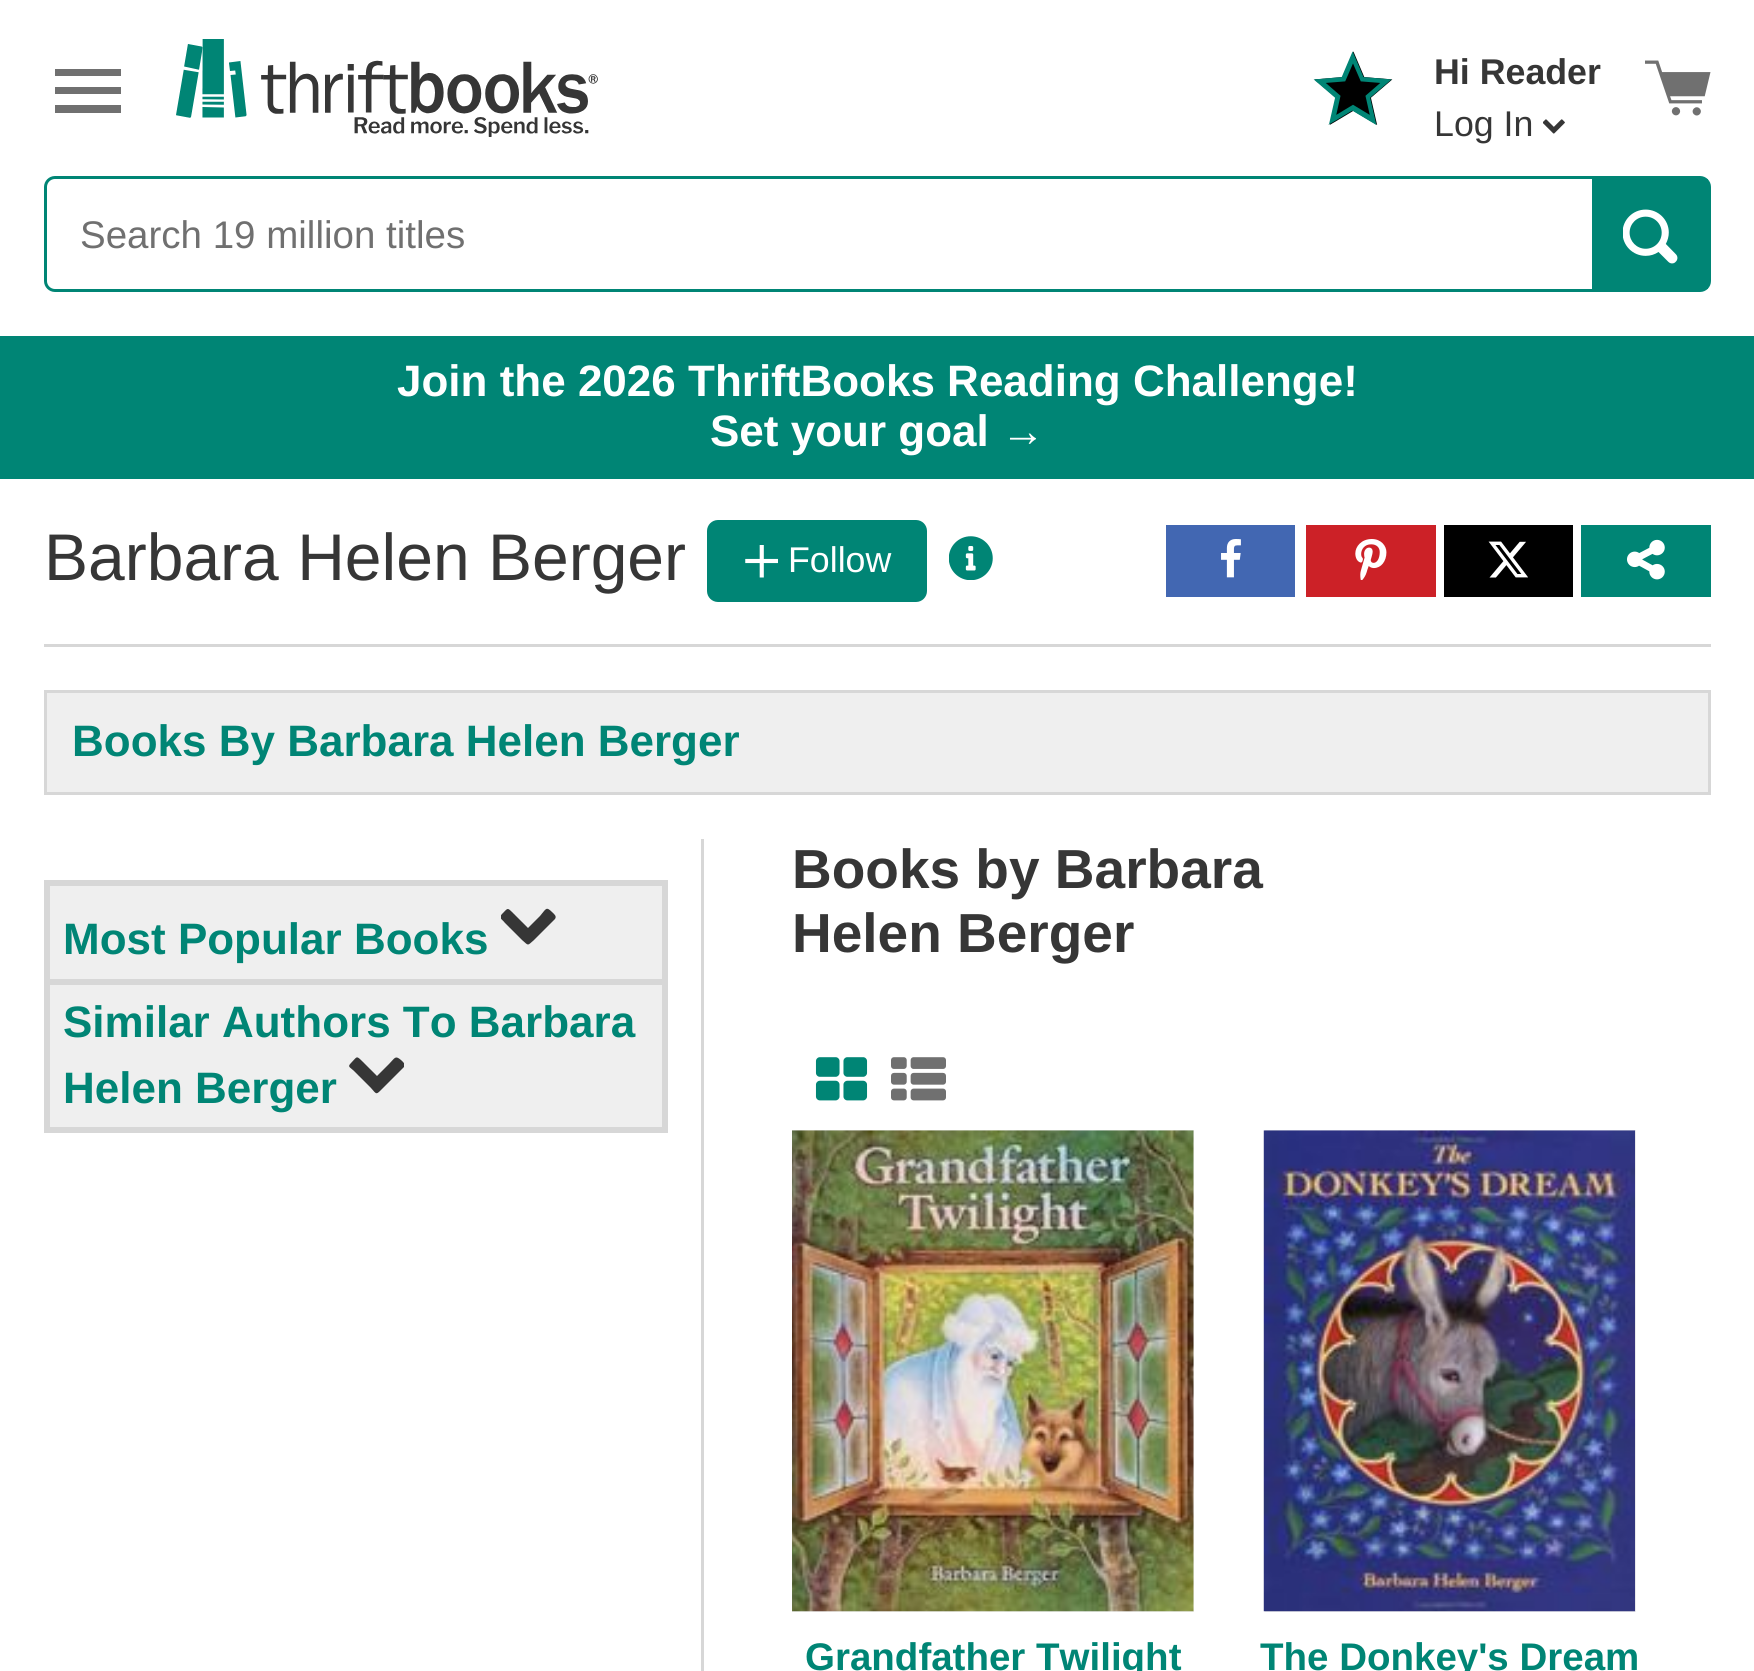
import math
import cairo

surface = cairo.ImageSurface(cairo.FORMAT_RGB24, 1754, 1671)
c = cairo.Context(surface)
options = cairo.FontOptions()
options.set_hint_metrics(cairo.HINT_METRICS_OFF)
options.set_hint_style(cairo.HINT_STYLE_NONE)
c.set_font_options(options)
c.set_miter_limit(4)
def C(code):
 c.set_source_rgb(*(v / 255 for v in bytes.fromhex(code[-6:])))
def F(family, size, italic, bold):
 c.select_font_face(family, cairo.FONT_SLANT_ITALIC if italic else cairo.FONT_SLANT_NORMAL, cairo.FONT_WEIGHT_BOLD if bold else cairo.FONT_WEIGHT_NORMAL)
 c.set_font_size(size)
def T(x, y, s):
 c.move_to(x, y)
 c.show_text(s)
def R(x, y, w, h):
 c.rectangle(x, y, w, h)
 c.fill()
def Q(x, y, w, h, r):
 c.new_sub_path()
 for i, (u, v) in enumerate([(x + w - r, y + h - r), (x + r, y + h - r), (x + r, y + r), (x + w - r, y + r)]):
  c.arc(u, v, r, i * math.pi / 2, (i + 1) * math.pi / 2)
 c.close_path()
def I(path, x, y, w, h):
 c.save()
 c.set_source_surface(cairo.ImageSurface.create_from_png(path), x, y)
 c.rectangle(x, y, w, h)
 c.fill()
 c.restore()
C('ffffff')
c.paint()
C('707070')
c.new_path()
c.move_to(55,113)
c.line_to(121,113)
c.line_to(121,105)
c.line_to(55,105)
c.close_path()
c.move_to(55,94)
c.line_to(121,94)
c.line_to(121,87)
c.line_to(55,87)
c.close_path()
c.move_to(55,69)
c.line_to(55,76)
c.line_to(121,76)
c.line_to(121,69)
c.close_path()
c.fill()
I('1.png',176,39,422,98)
I('2.png',1313,51,80,74)
F('Liberation Sans',35.75,0,1)
C('363636')
T(1434,84,'Hi Reader')
F('Liberation Sans',35.75,0,0)
T(1434,136,'Log In')
I('3.png',1543,119,22,15)
I('4.png',1645,60,66,56)
Q(45.5,177.5,1664,113,9.5)
C('008575')
c.set_line_width(3)
c.stroke()
C('ffffff')
c.new_path()
c.move_to(58,179)
c.line_to(1592,179)
c.line_to(1592,289)
c.line_to(58,289)
c.curve_to(52,289,47,284,47,278)
c.line_to(47,190)
c.curve_to(47,184,52,179,58,179)
c.close_path()
c.fill()
F('Liberation Sans',38.5,0,0)
C('707070')
T(80,248,'Search 19 million titles')
C('008575')
R(1592,179,116,110)
I('5.png',1623,209,55,55)
R(0,336,1754,143)
F('Liberation Sans',44,0,1)
C('ffffff')
T(397,396,'Join the 2026 ThriftBooks Reading Challenge!')
T(710,446,'Set your goal →')
C('d7d7d7')
R(44,644,1667,3)
F('Liberation Sans',66,0,0)
C('363636')
T(44,580,'Barbara Helen Berger')
C('008575')
Q(708.5,521.5,217,79,9.5)
c.fill_preserve()
c.stroke()
I('6.png',745,545,33,33)
F('Liberation Sans',35.75,0,0)
C('ffffff')
T(788,572,'Follow')
I('7.png',949,536,44,44)
C('4267b2')
R(1166,525,129,72)
I('8.png',1221,539,20,39)
C('cc2127')
R(1306,525,130,72)
I('9.png',1355,539,32,41)
C('000000')
R(1444,525,129,72)
I('10.png',1488,541,40,37)
C('008575')
R(1581,525,130,72)
I('11.png',1627,539,38,41)
C('efefef')
c.rectangle(45.5,691.5,1664,102)
c.fill_preserve()
C('d7d7d7')
c.stroke()
F('Liberation Sans',44,0,1)
C('008575')
T(72,756,'Books By Barbara Helen Berger')
C('d7d7d7')
R(701,839,3,832)
C('efefef')
c.rectangle(47,883,618,247)
c.fill_preserve()
C('d7d7d7')
c.set_line_width(6)
c.stroke()
R(50,979,613,6)
C('008575')
T(63,954,'Most Popular Books')
c.save()
c.rectangle(501,899,55,55)
c.clip()
C('363636')
c.new_path()
c.move_to(555,919)
c.line_to(534,940)
c.curve_to(527,946,529,946,522,940)
c.line_to(505,923)
c.curve_to(502,919,498,918,502,914)
c.curve_to(508,908,507,907,513,913)
c.line_to(528,928)
c.line_to(540,916)
c.curve_to(546,909,546,906,552,912)
c.curve_to(554,914,557,916,555,919)
c.close_path()
c.fill()
c.restore()
T(63,1037,'Similar Authors To Barbara')
T(63,1103,'Helen Berger')
c.save()
c.rectangle(349,1048,55,55)
c.clip()
C('363636')
c.new_path()
c.move_to(404,1067)
c.line_to(383,1088)
c.curve_to(376,1095,377,1095,371,1088)
c.line_to(354,1071)
c.curve_to(350,1067,347,1067,351,1063)
c.curve_to(357,1057,356,1055,362,1061)
c.line_to(377,1076)
c.line_to(389,1064)
c.curve_to(395,1058,395,1055,401,1060)
c.curve_to(403,1062,406,1064,404,1067)
c.close_path()
c.fill()
c.restore()
F('Liberation Sans',55,0,1)
C('363636')
T(792,888,'Books by Barbara')
T(792,952,'Helen Berger')
I('12.png',815,1057,53,44)
I('13.png',891,1057,55,44)
C('efefef')
R(792,1130,402,482)
I('14.png',792,1130,402,482)
F('Liberation Sans',38.5,0,1)
C('008575')
T(805,1670,'Grandfather Twilight')
C('efefef')
R(1265,1130,371,482)
I('15.png',1263,1130,373,482)
C('008575')
T(1260,1670,'The Donkey\'s Dream')
surface.write_to_png('o.png')
